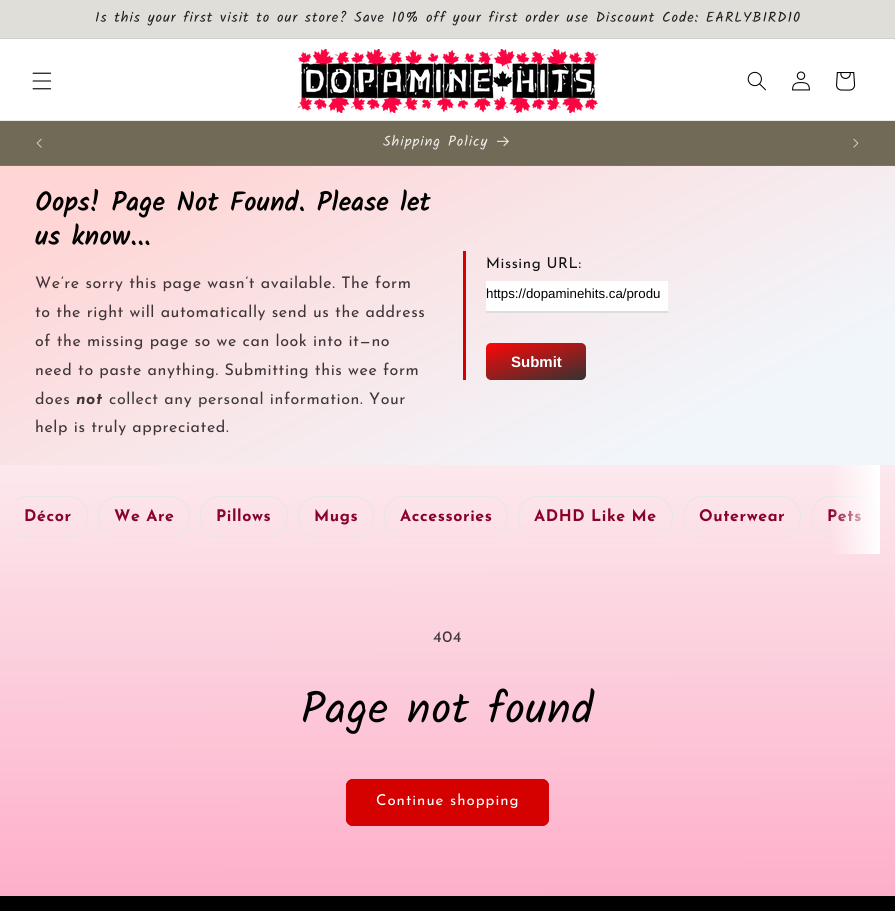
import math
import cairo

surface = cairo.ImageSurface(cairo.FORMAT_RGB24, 895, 911)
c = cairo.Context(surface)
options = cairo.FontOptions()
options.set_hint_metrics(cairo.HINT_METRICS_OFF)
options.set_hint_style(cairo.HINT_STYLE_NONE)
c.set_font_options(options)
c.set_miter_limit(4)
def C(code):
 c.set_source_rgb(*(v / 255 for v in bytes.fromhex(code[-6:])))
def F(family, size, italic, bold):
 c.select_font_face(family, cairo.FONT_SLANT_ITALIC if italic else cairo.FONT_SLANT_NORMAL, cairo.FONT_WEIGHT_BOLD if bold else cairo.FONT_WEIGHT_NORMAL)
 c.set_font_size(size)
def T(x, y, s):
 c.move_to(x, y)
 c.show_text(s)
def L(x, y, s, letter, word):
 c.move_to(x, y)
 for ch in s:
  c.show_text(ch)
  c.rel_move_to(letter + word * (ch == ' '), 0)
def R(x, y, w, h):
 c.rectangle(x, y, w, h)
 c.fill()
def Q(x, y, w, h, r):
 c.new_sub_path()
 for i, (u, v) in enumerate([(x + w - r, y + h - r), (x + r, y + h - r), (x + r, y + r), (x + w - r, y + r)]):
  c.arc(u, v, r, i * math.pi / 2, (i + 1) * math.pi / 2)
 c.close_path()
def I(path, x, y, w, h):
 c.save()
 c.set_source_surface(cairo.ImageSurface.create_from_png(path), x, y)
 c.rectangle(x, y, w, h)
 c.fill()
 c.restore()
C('ffffff')
c.paint()
gradient = cairo.LinearGradient(447,0,448,911)
gradient.add_color_stop_rgba(0,0.973,0.843,0.855,1)
gradient.add_color_stop_rgba(.5,0.988,0.918,0.933,1)
gradient.add_color_stop_rgba(1,0.992,0.678,0.784,1)
c.set_source(gradient)
R(0,465,895,431)
C('dfded9')
R(0,0,895,38)
C('d0cfca')
R(0,38,895,1)
F('Kalam',14.3,0,0)
C('1f1f1f')
L(95,22,'Is this your first visit to our store? Save 10% off your first order use Discount Code: EARLYBIRD10',1,0)
C('ebebeb')
R(0,120,895,1)
I('1.png',32,72,20,18)
I('2.png',298,49,300,64)
I('3.png',747,71,19,20)
I('4.png',792,71,18,20)
I('5.png',836,72,20,19)
C('716a56')
R(0,121,895,44)
C('7b7462')
R(0,165,895,1)
I('6.png',36,138,6,10)
C('efecec')
L(383,146,'Shipping Policy',1,0)
I('7.png',497,136,12,11)
I('8.png',853,138,6,10)
gradient = cairo.LinearGradient(295,16,600,615)
gradient.add_color_stop_rgba(.11,1,0.835,0.835,1)
gradient.add_color_stop_rgba(.81,0.945,0.965,0.984,1)
c.set_source(gradient)
R(0,166,895,299)
F('Kalam',26.4,0,1)
C('000000')
L(35,211,'Oops! Page Not Found. Please let',.65,0)
L(35,245,'us know...',.65,0)
F('Josefin Sans',16,0,0)
C('3f3438')
L(35,288,'We’re sorry this page wasn’t available. The form',.6,0)
L(35,317,'to the right will automatically send us the address',.6,0)
L(35,346,'of the missing page so we can look into it—no',.6,0)
L(35,375,'need to paste anything. Submitting this wee form',.6,0)
L(35,404,'does',.6,0)
F('Josefin Sans',16,1,1)
L(76,404,'not',.6,0)
F('Josefin Sans',16,0,0)
C('3e3a3a')
L(109,404,'collect any personal information. Your',.6,0)
C('3f3438')
L(35,432,'help is truly appreciated.',.6,0)
C('d50000')
R(463,251,3,129)
F('Josefin Sans',15,0,0)
C('111111')
L(486,268,'Missing URL:',.6,0)
C('ffffff')
R(486,281,182,30)
C('dddddd')
R(486,311,182,2)
F('Liberation Sans',13.3,0,0)
C('000000')
T(486,298,'https://dopaminehits.ca/produ')
gradient = cairo.LinearGradient(527,331,545,392)
gradient.add_color_stop_rgba(0,1,0.024,0.024,1)
gradient.add_color_stop_rgba(1,0.2,0.2,0.2,1)
c.set_source(gradient)
Q(486,343,100,37,5)
c.fill()
F('Liberation Sans',15,0,1)
C('ffffff')
T(511,367,'Submit')
Q(811.5,496.5,66,41,19.5)
C('e6e6e6')
c.set_line_width(1)
c.stroke()
F('Josefin Sans',16,0,1)
C('8a0229')
L(827,521,'Pets',.6,0)
gradient = cairo.LinearGradient(830,510,880,510)
gradient.add_color_stop_rgba(0,1,1,1,0)
gradient.add_color_stop_rgba(1,1,1,1,1)
c.set_source(gradient)
R(831,465,49,89)
c.save()
c.rectangle(15,465,865,89)
c.clip()
Q(8.5,496.5,79,41,19.5)
C('e6e6e6')
c.stroke()
c.restore()
C('8a0229')
L(24,521,'Décor',.6,0)
Q(98.5,496.5,91,41,19.5)
C('e6e6e6')
c.stroke()
C('8a0229')
L(114,521,'We Are',.6,0)
Q(200.5,496.5,87,41,19.5)
C('e6e6e6')
c.stroke()
C('8a0229')
L(216,521,'Pillows',.6,0)
Q(298.5,496.5,75,41,19.5)
C('e6e6e6')
c.stroke()
C('8a0229')
L(314,521,'Mugs',.6,0)
Q(384.5,496.5,123,41,19.5)
C('e6e6e6')
c.stroke()
C('8a0229')
L(400,521,'Accessories',.6,0)
Q(518.5,496.5,154,41,19.5)
C('e6e6e6')
c.stroke()
C('8a0229')
L(534,521,'ADHD Like Me',.6,0)
Q(683.5,496.5,117,41,19.5)
C('e6e6e6')
c.stroke()
C('8a0229')
L(699,521,'Outerwear',.6,0)
F('Josefin Sans',16,0,0)
C('3f3438')
L(433,642,'404',.6,0)
F('Kalam',44,0,0)
C('000000')
L(301,723,'Page not found',.65,0)
C('d50000')
Q(346,779,203,47,7)
c.fill()
Q(346.5,779.5,202,46,6.5)
c.stroke()
F('Josefin Sans',15,0,0)
C('ffffff')
L(376,805,'Continue shopping',1,0)
C('000000')
R(0,896,895,15)
surface.write_to_png('o.png')
